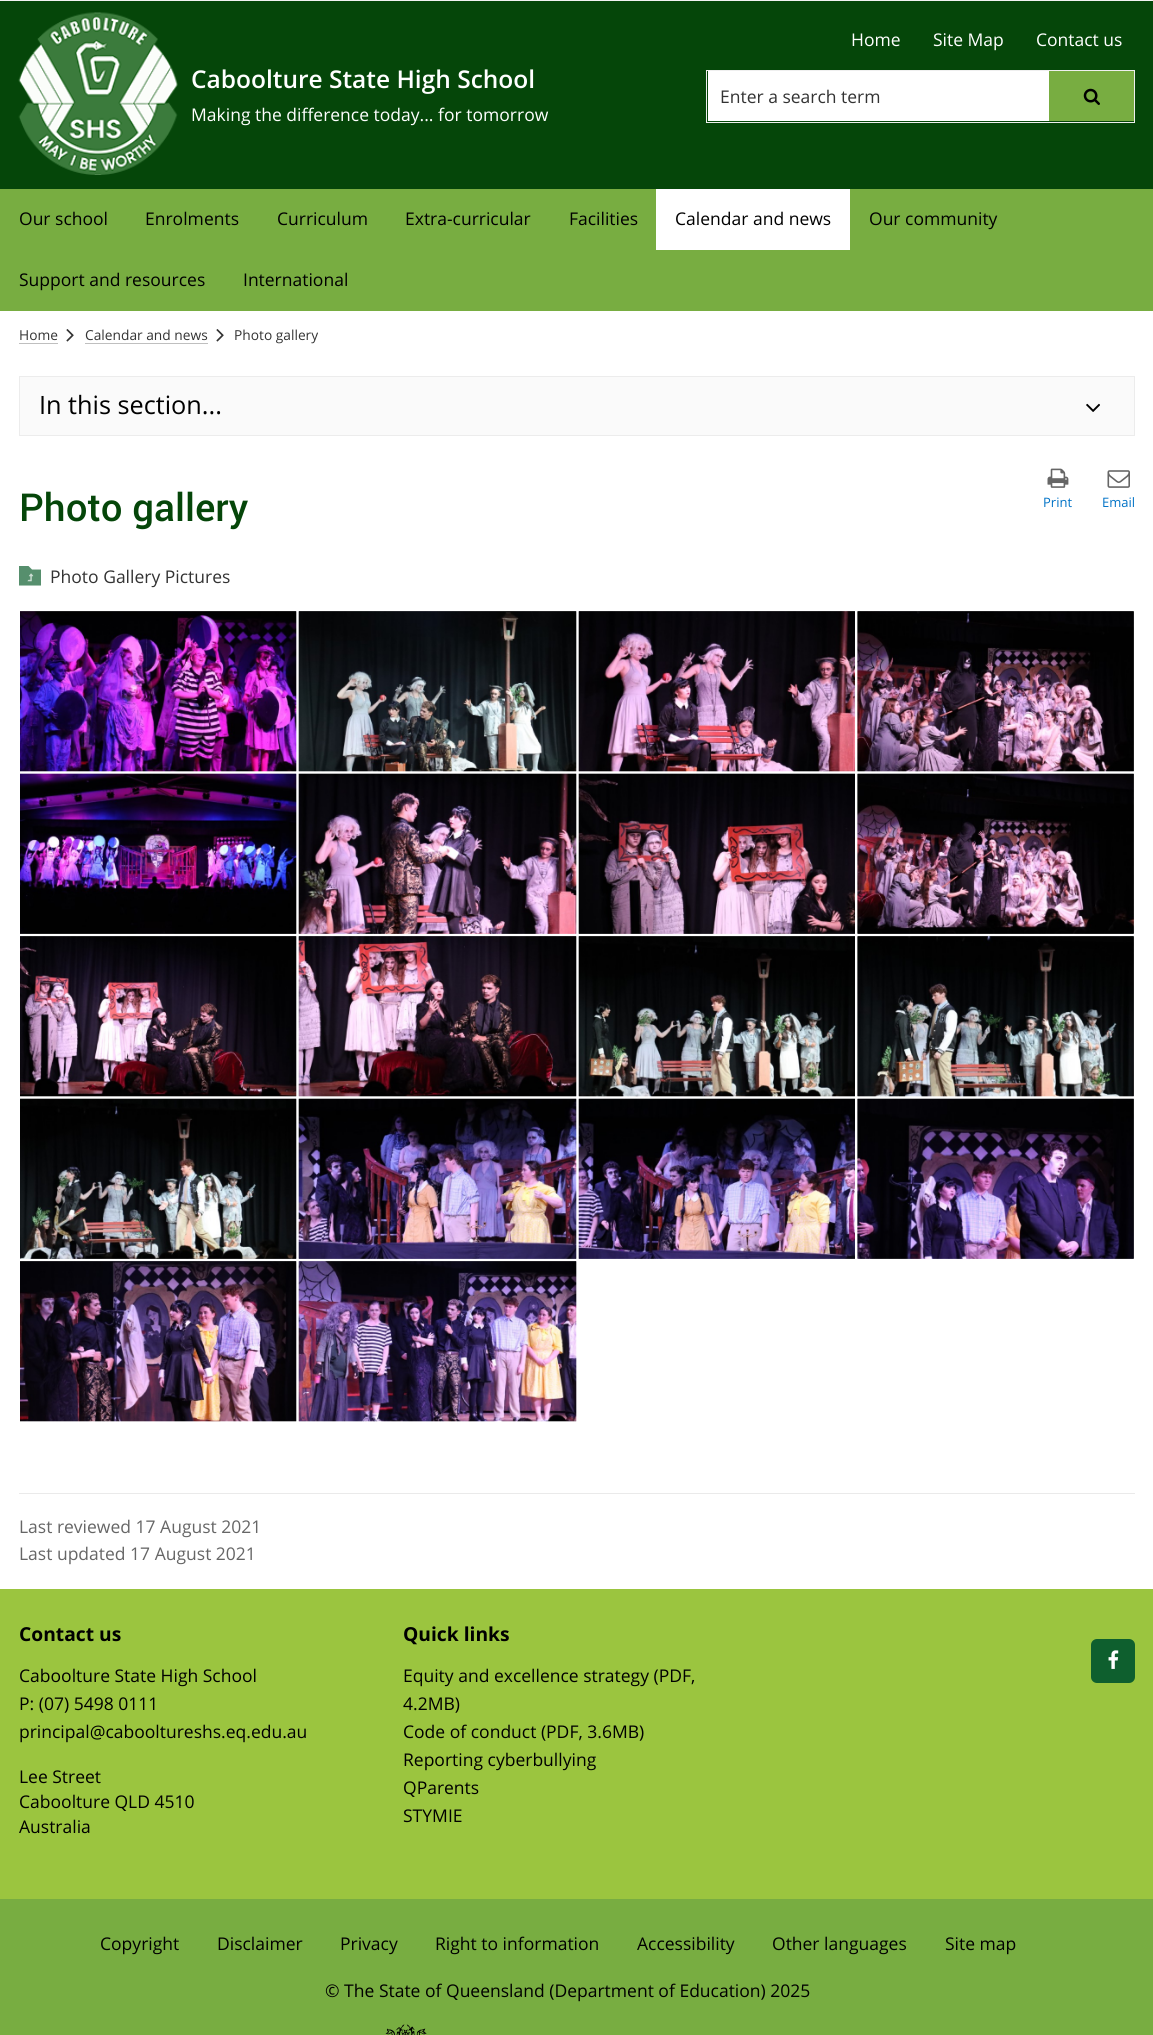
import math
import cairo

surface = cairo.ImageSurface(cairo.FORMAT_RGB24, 1153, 2035)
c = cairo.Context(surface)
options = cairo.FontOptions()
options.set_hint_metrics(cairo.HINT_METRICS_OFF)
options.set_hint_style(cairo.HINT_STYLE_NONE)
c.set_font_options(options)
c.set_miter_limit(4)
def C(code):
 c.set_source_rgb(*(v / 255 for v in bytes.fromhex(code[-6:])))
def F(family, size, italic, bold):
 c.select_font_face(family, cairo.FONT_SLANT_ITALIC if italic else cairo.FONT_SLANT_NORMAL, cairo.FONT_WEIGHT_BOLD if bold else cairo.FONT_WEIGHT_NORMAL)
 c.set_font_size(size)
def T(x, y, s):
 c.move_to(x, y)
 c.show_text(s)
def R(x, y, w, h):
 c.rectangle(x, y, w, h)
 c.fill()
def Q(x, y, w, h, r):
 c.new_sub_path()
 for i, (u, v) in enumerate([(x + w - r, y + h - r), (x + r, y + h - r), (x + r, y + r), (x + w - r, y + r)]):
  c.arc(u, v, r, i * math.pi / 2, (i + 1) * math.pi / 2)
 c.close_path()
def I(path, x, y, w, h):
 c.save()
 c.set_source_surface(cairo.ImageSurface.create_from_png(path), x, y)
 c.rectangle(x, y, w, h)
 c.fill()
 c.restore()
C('ffffff')
c.paint()
C('f3f3f3')
R(0,0,1153,1)
C('054609')
R(0,1,1153,188)
I('1.png',18,12,160,163)
F('Open Sans SemiBold',24.5,0,0)
C('ffffff')
T(191,88,'Caboolture State High School')
F('Open Sans',17.5,0,0)
T(191,121,'Making the difference today... for tomorrow')
T(851,46,'Home')
T(933,46,'Site Map')
T(1036,46,'Contact us')
c.rectangle(706.5,70.5,428,52)
C('efefef')
c.set_line_width(1)
c.stroke()
C('ffffff')
R(708,71,341,50)
C('333333')
T(720,103,'Enter a search term')
C('78ad41')
R(1049,71,85,50)
I('2.png',1083,88,17,17)
R(0,189,1153,122)
C('000000')
T(19,225,'Our school')
T(145,225,'Enrolments')
T(277,225,'Curriculum')
T(405,225,'Extra-curricular')
T(569,225,'Facilities')
C('ffffff')
R(656,189,194,61)
C('000000')
T(675,225,'Calendar and news')
T(869,225,'Our community')
T(19,286,'Support and resources')
T(243,286,'International')
F('Open Sans',13.75,0,0)
C('333333')
T(19,340,'Home')
C('bfbfbf')
R(19,343,39,1)
I('3.png',66,329,8,13)
C('333333')
T(85,340,'Calendar and news')
C('bfbfbf')
R(85,343,123,1)
I('3.png',216,329,8,13)
C('333333')
T(234,340,'Photo gallery')
C('fafafa')
c.rectangle(19.5,376.5,1115,59)
c.fill_preserve()
C('ececec')
c.stroke()
F('Open Sans',25.25,0,0)
C('000000')
T(39,414,'In this section...')
I('4.png',1086,403,14,9)
F('Roboto Medium',38.5,0,0)
C('054609')
T(19,521,'Photo gallery')
I('5.png',1047,468,22,20)
F('Open Sans',13,0,0)
C('0072c6')
T(1043,507,'Print')
I('6.png',1107,470,23,18)
T(1102,507,'Email')
C('568f6d')
c.new_path()
c.move_to(32,569.5)
c.line_to(28.5,566)
c.line_to(19,566)
c.line_to(19,585.5)
c.line_to(41,585.5)
c.line_to(41,569.5)
c.close_path()
c.fill()
I('7.png',27,573,7,9)
F('Open Sans',17.5,0,0)
C('333333')
T(50,583,'Photo Gallery Pictures')
I('8.png',20,611,277,161)
I('9.png',20,611,277,161)
I('10.png',298,611,279,161)
I('11.png',298,611,279,161)
I('12.png',578,611,277,161)
I('13.png',578,611,277,161)
I('14.png',857,611,277,161)
I('15.png',857,611,277,161)
I('16.png',20,773,277,161)
I('17.png',20,773,277,161)
I('18.png',298,773,279,161)
I('19.png',298,773,279,161)
I('20.png',578,773,277,161)
I('21.png',578,773,277,161)
I('22.png',857,773,277,161)
I('23.png',857,773,277,161)
I('24.png',20,936,277,161)
I('25.png',20,936,277,161)
I('26.png',298,936,279,161)
I('27.png',298,936,279,161)
I('28.png',578,936,277,161)
I('29.png',578,936,277,161)
I('30.png',857,936,277,161)
I('31.png',857,936,277,161)
I('32.png',20,1098,277,161)
I('33.png',20,1098,277,161)
I('34.png',298,1098,279,161)
I('35.png',298,1098,279,161)
I('36.png',578,1098,277,161)
I('37.png',578,1098,277,161)
I('38.png',857,1098,277,161)
I('39.png',857,1098,277,161)
I('40.png',20,1261,277,161)
I('41.png',20,1261,277,161)
I('42.png',298,1261,279,161)
I('43.png',298,1261,279,161)
C('eaeaea')
R(19,1493,1116,1)
C('666666')
T(19,1533,'Last reviewed 17 August 2021')
T(19,1560,'Last updated 17 August 2021')
C('9bc53f')
R(0,1589,1153,310)
F('Open Sans',19.25,0,1)
C('000000')
T(19,1641,'Contact us')
F('Open Sans',17.5,0,0)
T(19,1682,'Caboolture State High School')
T(19,1710,'P: (07) 5498 0111')
T(19,1738,'principal@cabooltureshs.eq.edu.au')
T(19,1783,'Lee Street')
T(19,1808,'Caboolture QLD 4510')
T(19,1833,'Australia')
F('Open Sans',19.25,0,1)
T(403,1641,'Quick links')
F('Open Sans',17.5,0,0)
T(403,1682,'Equity and excellence strategy (PDF,')
T(403,1710,'4.2MB)')
T(403,1738,'Code of conduct (PDF, 3.6MB)')
T(403,1766,'Reporting cyberbullying')
T(403,1794,'QParents')
T(403,1822,'STYMIE')
C('0e5f2e')
Q(1091,1639,44,44,6)
c.fill()
I('44.png',1108,1650,11,19)
C('78ad41')
R(0,1899,1153,136)
C('000000')
T(100,1950,'Copyright')
T(217,1950,'Disclaimer')
T(340,1950,'Privacy')
T(435,1950,'Right to information')
T(637,1950,'Accessibility')
T(772,1950,'Other languages')
T(945,1950,'Site map')
T(325,1997,'© The State of Queensland (Department of Education) 2025')
I('45.png',385,2024,42,11)
surface.write_to_png('o.png')
